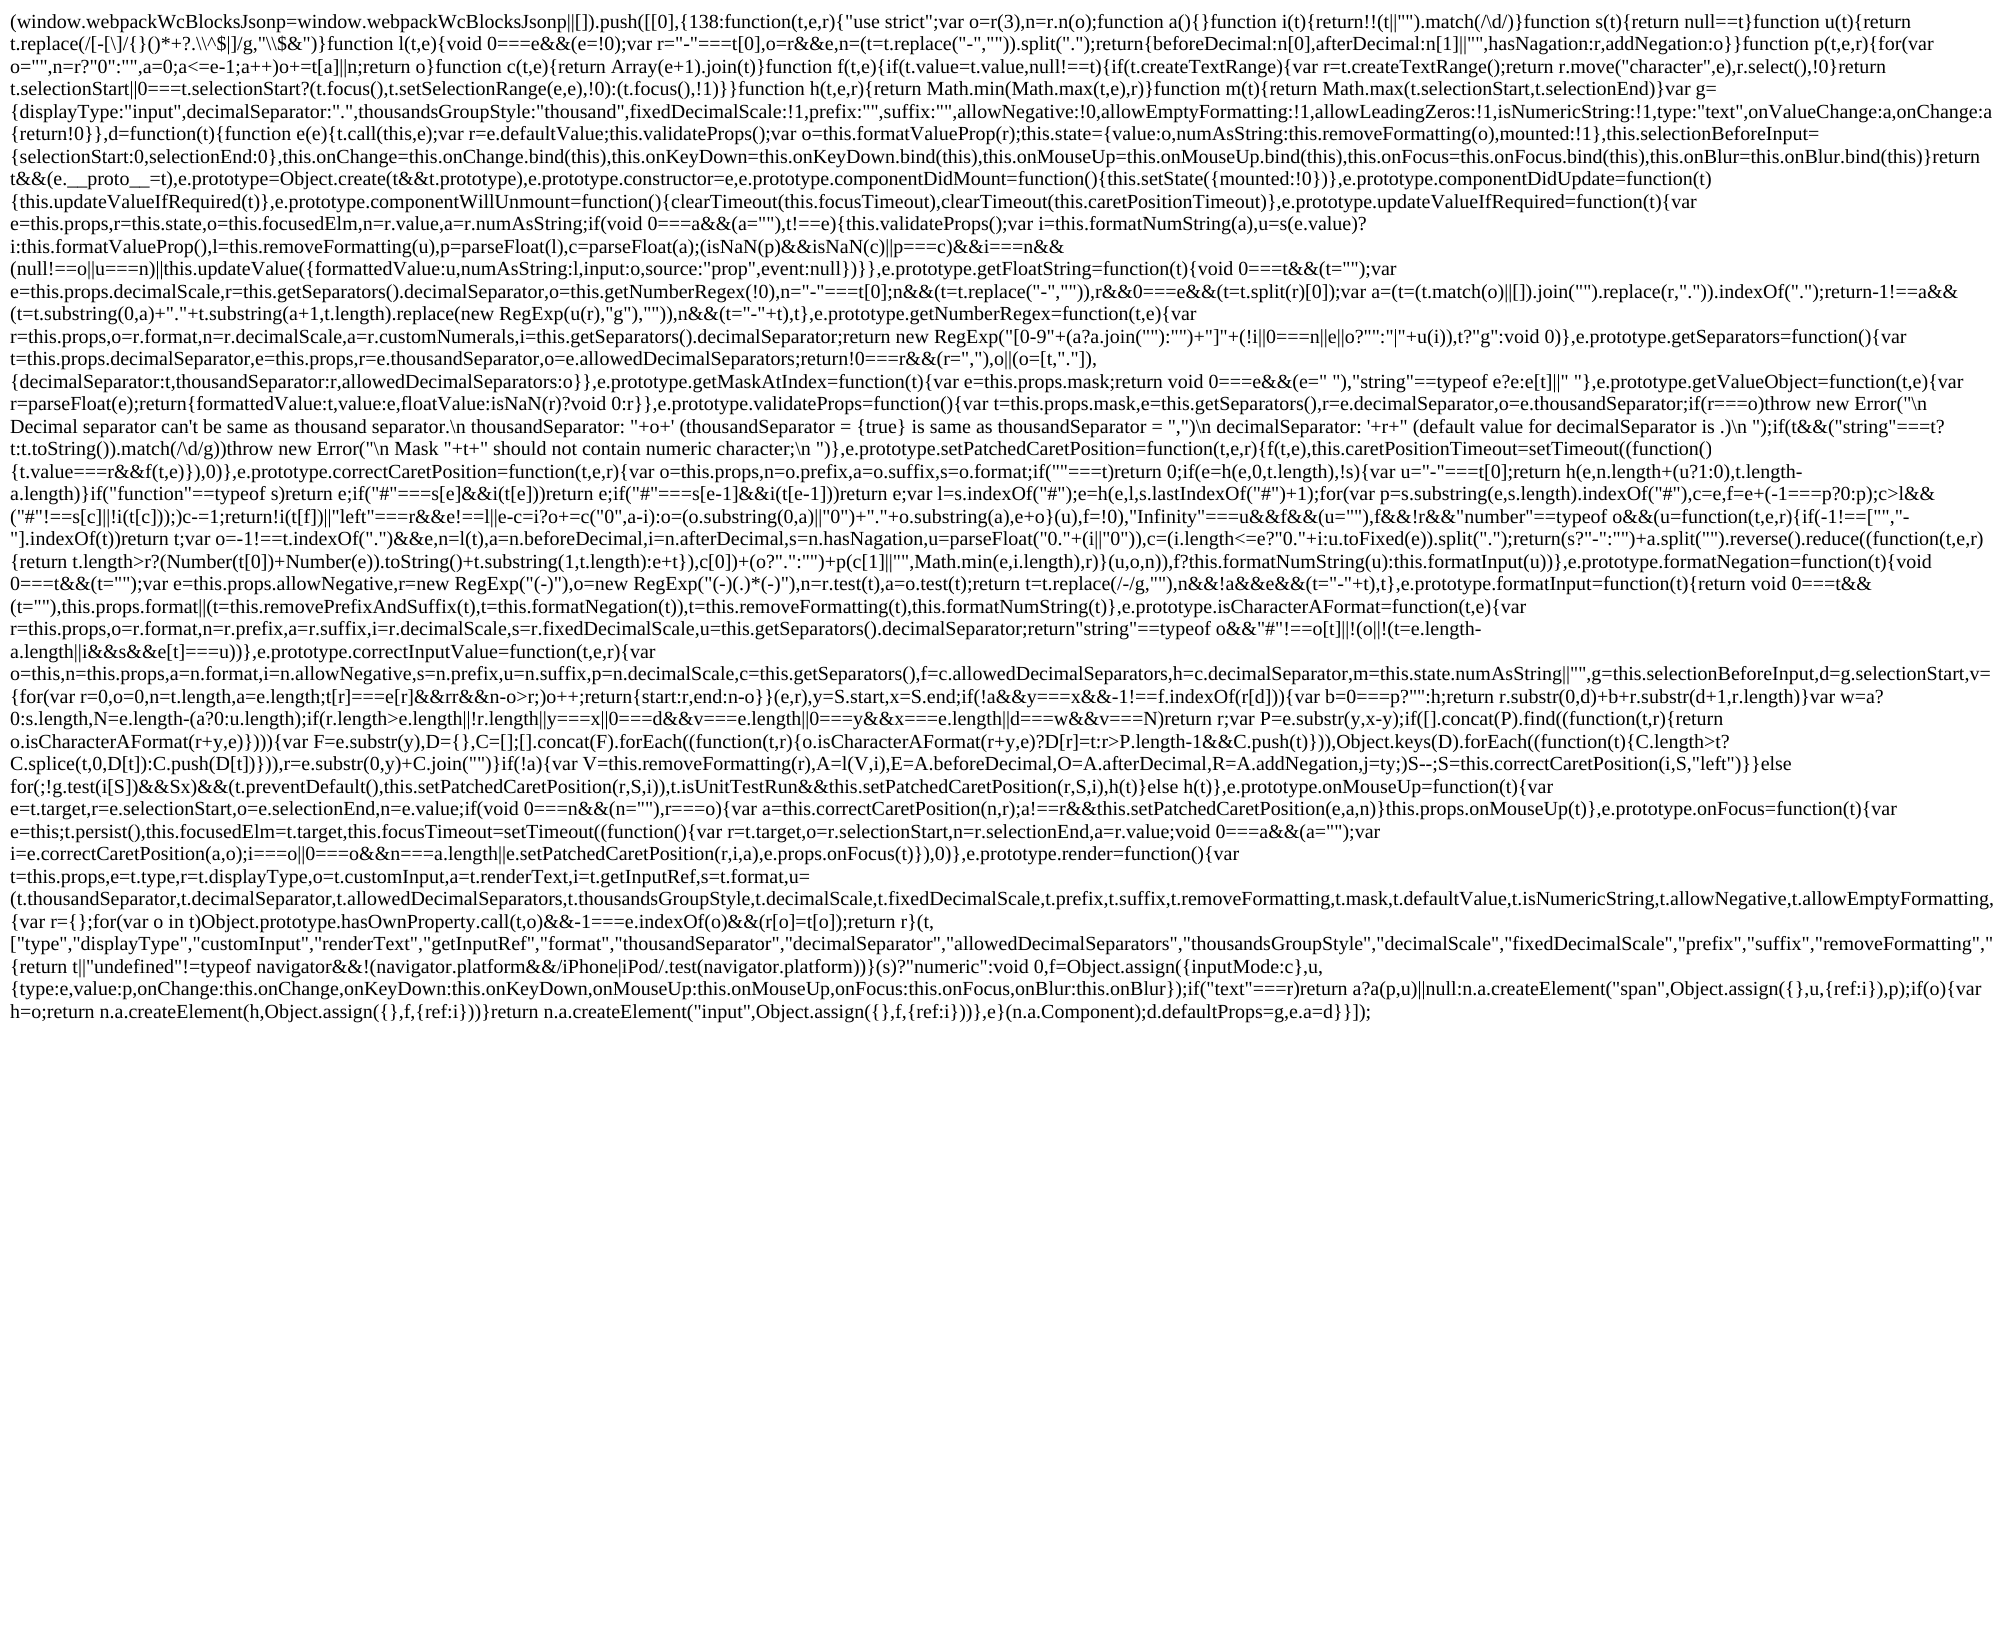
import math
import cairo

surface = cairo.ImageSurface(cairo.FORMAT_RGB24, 1993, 1630)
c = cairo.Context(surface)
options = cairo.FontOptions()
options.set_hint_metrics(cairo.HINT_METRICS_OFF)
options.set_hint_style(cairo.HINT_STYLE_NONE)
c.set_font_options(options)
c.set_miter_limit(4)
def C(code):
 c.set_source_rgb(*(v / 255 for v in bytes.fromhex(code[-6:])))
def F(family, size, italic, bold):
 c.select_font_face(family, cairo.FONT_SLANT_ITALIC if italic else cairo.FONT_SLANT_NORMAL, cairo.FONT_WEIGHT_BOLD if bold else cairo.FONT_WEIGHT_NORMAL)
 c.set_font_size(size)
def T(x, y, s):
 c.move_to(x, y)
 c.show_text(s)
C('ffffff')
c.paint()
F('Liberation Serif',20,0,0)
C('000000')
T(10,28,'(window.webpackWcBlocksJsonp=window.webpackWcBlocksJsonp||[]).push([[0],{138:function(t,e,r){"use strict";var o=r(3),n=r.n(o);function a(){}function i(t){return!!(t||"").match(/\\d/)}function s(t){return null==t}function u(t){return')
T(10,50,'t.replace(/[-[\\]/{}()*+?.\\\\^$|]/g,"\\\\$&")}function l(t,e){void 0===e&&(e=!0);var r="-"===t[0],o=r&&e,n=(t=t.replace("-","")).split(".");return{beforeDecimal:n[0],afterDecimal:n[1]||"",hasNagation:r,addNegation:o}}function p(t,e,r){for(var')
T(10,73,'o="",n=r?"0":"",a=0;a<=e-1;a++)o+=t[a]||n;return o}function c(t,e){return Array(e+1).join(t)}function f(t,e){if(t.value=t.value,null!==t){if(t.createTextRange){var r=t.createTextRange();return r.move("character",e),r.select(),!0}return')
T(10,95,'t.selectionStart||0===t.selectionStart?(t.focus(),t.setSelectionRange(e,e),!0):(t.focus(),!1)}}function h(t,e,r){return Math.min(Math.max(t,e),r)}function m(t){return Math.max(t.selectionStart,t.selectionEnd)}var g=')
T(10,118,'{displayType:"input",decimalSeparator:".",thousandsGroupStyle:"thousand",fixedDecimalScale:!1,prefix:"",suffix:"",allowNegative:!0,allowEmptyFormatting:!1,allowLeadingZeros:!1,isNumericString:!1,type:"text",onValueChange:a,onChange:a')
T(10,140,'{return!0}},d=function(t){function e(e){t.call(this,e);var r=e.defaultValue;this.validateProps();var o=this.formatValueProp(r);this.state={value:o,numAsString:this.removeFormatting(o),mounted:!1},this.selectionBeforeInput=')
T(10,163,'{selectionStart:0,selectionEnd:0},this.onChange=this.onChange.bind(this),this.onKeyDown=this.onKeyDown.bind(this),this.onMouseUp=this.onMouseUp.bind(this),this.onFocus=this.onFocus.bind(this),this.onBlur=this.onBlur.bind(this)}return')
T(10,185,'t&&(e.__proto__=t),e.prototype=Object.create(t&&t.prototype),e.prototype.constructor=e,e.prototype.componentDidMount=function(){this.setState({mounted:!0})},e.prototype.componentDidUpdate=function(t)')
T(10,208,'{this.updateValueIfRequired(t)},e.prototype.componentWillUnmount=function(){clearTimeout(this.focusTimeout),clearTimeout(this.caretPositionTimeout)},e.prototype.updateValueIfRequired=function(t){var')
T(10,230,'e=this.props,r=this.state,o=this.focusedElm,n=r.value,a=r.numAsString;if(void 0===a&&(a=""),t!==e){this.validateProps();var i=this.formatNumString(a),u=s(e.value)?')
T(10,253,'i:this.formatValueProp(),l=this.removeFormatting(u),p=parseFloat(l),c=parseFloat(a);(isNaN(p)&&isNaN(c)||p===c)&&i===n&&')
T(10,275,'(null!==o||u===n)||this.updateValue({formattedValue:u,numAsString:l,input:o,source:"prop",event:null})}},e.prototype.getFloatString=function(t){void 0===t&&(t="");var')
T(10,298,'e=this.props.decimalScale,r=this.getSeparators().decimalSeparator,o=this.getNumberRegex(!0),n="-"===t[0];n&&(t=t.replace("-","")),r&&0===e&&(t=t.split(r)[0]);var a=(t=(t.match(o)||[]).join("").replace(r,".")).indexOf(".");return-1!==a&&')
T(10,320,'(t=t.substring(0,a)+"."+t.substring(a+1,t.length).replace(new RegExp(u(r),"g"),"")),n&&(t="-"+t),t},e.prototype.getNumberRegex=function(t,e){var')
T(10,343,'r=this.props,o=r.format,n=r.decimalScale,a=r.customNumerals,i=this.getSeparators().decimalSeparator;return new RegExp("[0-9"+(a?a.join(""):"")+"]"+(!i||0===n||e||o?"":"|"+u(i)),t?"g":void 0)},e.prototype.getSeparators=function(){var')
T(10,365,'t=this.props.decimalSeparator,e=this.props,r=e.thousandSeparator,o=e.allowedDecimalSeparators;return!0===r&&(r=","),o||(o=[t,"."]),')
T(10,388,'{decimalSeparator:t,thousandSeparator:r,allowedDecimalSeparators:o}},e.prototype.getMaskAtIndex=function(t){var e=this.props.mask;return void 0===e&&(e=" "),"string"==typeof e?e:e[t]||" "},e.prototype.getValueObject=function(t,e){var')
T(10,410,'r=parseFloat(e);return{formattedValue:t,value:e,floatValue:isNaN(r)?void 0:r}},e.prototype.validateProps=function(){var t=this.props.mask,e=this.getSeparators(),r=e.decimalSeparator,o=e.thousandSeparator;if(r===o)throw new Error("\\n')
T(10,433,'Decimal separator can\'t be same as thousand separator.\\n thousandSeparator: "+o+\' (thousandSeparator = {true} is same as thousandSeparator = ",")\\n decimalSeparator: \'+r+" (default value for decimalSeparator is .)\\n ");if(t&&("string"===t?')
T(10,455,'t:t.toString()).match(/\\d/g))throw new Error("\\n Mask "+t+" should not contain numeric character;\\n ")},e.prototype.setPatchedCaretPosition=function(t,e,r){f(t,e),this.caretPositionTimeout=setTimeout((function()')
T(10,478,'{t.value===r&&f(t,e)}),0)},e.prototype.correctCaretPosition=function(t,e,r){var o=this.props,n=o.prefix,a=o.suffix,s=o.format;if(""===t)return 0;if(e=h(e,0,t.length),!s){var u="-"===t[0];return h(e,n.length+(u?1:0),t.length-')
T(10,500,'a.length)}if("function"==typeof s)return e;if("#"===s[e]&&i(t[e]))return e;if("#"===s[e-1]&&i(t[e-1]))return e;var l=s.indexOf("#");e=h(e,l,s.lastIndexOf("#")+1);for(var p=s.substring(e,s.length).indexOf("#"),c=e,f=e+(-1===p?0:p);c>l&&')
T(10,523,'("#"!==s[c]||!i(t[c]));)c-=1;return!i(t[f])||"left"===r&&e!==l||e-c=i?o+=c("0",a-i):o=(o.substring(0,a)||"0")+"."+o.substring(a),e+o}(u),f=!0),"Infinity"===u&&f&&(u=""),f&&!r&&"number"==typeof o&&(u=function(t,e,r){if(-1!==["","-')
T(10,545,'"].indexOf(t))return t;var o=-1!==t.indexOf(".")&&e,n=l(t),a=n.beforeDecimal,i=n.afterDecimal,s=n.hasNagation,u=parseFloat("0."+(i||"0")),c=(i.length<=e?"0."+i:u.toFixed(e)).split(".");return(s?"-":"")+a.split("").reverse().reduce((function(t,e,r)')
T(10,568,'{return t.length>r?(Number(t[0])+Number(e)).toString()+t.substring(1,t.length):e+t}),c[0])+(o?".":"")+p(c[1]||"",Math.min(e,i.length),r)}(u,o,n)),f?this.formatNumString(u):this.formatInput(u))},e.prototype.formatNegation=function(t){void')
T(10,590,'0===t&&(t="");var e=this.props.allowNegative,r=new RegExp("(-)"),o=new RegExp("(-)(.)*(-)"),n=r.test(t),a=o.test(t);return t=t.replace(/-/g,""),n&&!a&&e&&(t="-"+t),t},e.prototype.formatInput=function(t){return void 0===t&&')
T(10,613,'(t=""),this.props.format||(t=this.removePrefixAndSuffix(t),t=this.formatNegation(t)),t=this.removeFormatting(t),this.formatNumString(t)},e.prototype.isCharacterAFormat=function(t,e){var')
T(10,635,'r=this.props,o=r.format,n=r.prefix,a=r.suffix,i=r.decimalScale,s=r.fixedDecimalScale,u=this.getSeparators().decimalSeparator;return"string"==typeof o&&"#"!==o[t]||!(o||!(t=e.length-')
T(10,658,'a.length||i&&s&&e[t]===u))},e.prototype.correctInputValue=function(t,e,r){var')
T(10,680,'o=this,n=this.props,a=n.format,i=n.allowNegative,s=n.prefix,u=n.suffix,p=n.decimalScale,c=this.getSeparators(),f=c.allowedDecimalSeparators,h=c.decimalSeparator,m=this.state.numAsString||"",g=this.selectionBeforeInput,d=g.selectionStart,v=')
T(10,703,'{for(var r=0,o=0,n=t.length,a=e.length;t[r]===e[r]&&rr&&n-o>r;)o++;return{start:r,end:n-o}}(e,r),y=S.start,x=S.end;if(!a&&y===x&&-1!==f.indexOf(r[d])){var b=0===p?"":h;return r.substr(0,d)+b+r.substr(d+1,r.length)}var w=a?')
T(10,725,'0:s.length,N=e.length-(a?0:u.length);if(r.length>e.length||!r.length||y===x||0===d&&v===e.length||0===y&&x===e.length||d===w&&v===N)return r;var P=e.substr(y,x-y);if([].concat(P).find((function(t,r){return')
T(10,748,'o.isCharacterAFormat(r+y,e)}))){var F=e.substr(y),D={},C=[];[].concat(F).forEach((function(t,r){o.isCharacterAFormat(r+y,e)?D[r]=t:r>P.length-1&&C.push(t)})),Object.keys(D).forEach((function(t){C.length>t?')
T(10,770,'C.splice(t,0,D[t]):C.push(D[t])})),r=e.substr(0,y)+C.join("")}if(!a){var V=this.removeFormatting(r),A=l(V,i),E=A.beforeDecimal,O=A.afterDecimal,R=A.addNegation,j=ty;)S--;S=this.correctCaretPosition(i,S,"left")}}else')
T(10,793,'for(;!g.test(i[S])&&Sx)&&(t.preventDefault(),this.setPatchedCaretPosition(r,S,i)),t.isUnitTestRun&&this.setPatchedCaretPosition(r,S,i),h(t)}else h(t)},e.prototype.onMouseUp=function(t){var')
T(10,815,'e=t.target,r=e.selectionStart,o=e.selectionEnd,n=e.value;if(void 0===n&&(n=""),r===o){var a=this.correctCaretPosition(n,r);a!==r&&this.setPatchedCaretPosition(e,a,n)}this.props.onMouseUp(t)},e.prototype.onFocus=function(t){var')
T(10,838,'e=this;t.persist(),this.focusedElm=t.target,this.focusTimeout=setTimeout((function(){var r=t.target,o=r.selectionStart,n=r.selectionEnd,a=r.value;void 0===a&&(a="");var')
T(10,860,'i=e.correctCaretPosition(a,o);i===o||0===o&&n===a.length||e.setPatchedCaretPosition(r,i,a),e.props.onFocus(t)}),0)},e.prototype.render=function(){var')
T(10,883,'t=this.props,e=t.type,r=t.displayType,o=t.customInput,a=t.renderText,i=t.getInputRef,s=t.format,u=')
T(10,905,'(t.thousandSeparator,t.decimalSeparator,t.allowedDecimalSeparators,t.thousandsGroupStyle,t.decimalScale,t.fixedDecimalScale,t.prefix,t.suffix,t.removeFormatting,t.mask,t.defaultValue,t.isNumericString,t.allowNegative,t.allowEmptyFormatting,')
T(10,928,'{var r={};for(var o in t)Object.prototype.hasOwnProperty.call(t,o)&&-1===e.indexOf(o)&&(r[o]=t[o]);return r}(t,')
T(10,950,'["type","displayType","customInput","renderText","getInputRef","format","thousandSeparator","decimalSeparator","allowedDecimalSeparators","thousandsGroupStyle","decimalScale","fixedDecimalScale","prefix","suffix","removeFormatting","')
T(10,973,'{return t||"undefined"!=typeof navigator&&!(navigator.platform&&/iPhone|iPod/.test(navigator.platform))}(s)?"numeric":void 0,f=Object.assign({inputMode:c},u,')
T(10,995,'{type:e,value:p,onChange:this.onChange,onKeyDown:this.onKeyDown,onMouseUp:this.onMouseUp,onFocus:this.onFocus,onBlur:this.onBlur});if("text"===r)return a?a(p,u)||null:n.a.createElement("span",Object.assign({},u,{ref:i}),p);if(o){var')
T(10,1018,'h=o;return n.a.createElement(h,Object.assign({},f,{ref:i}))}return n.a.createElement("input",Object.assign({},f,{ref:i}))},e}(n.a.Component);d.defaultProps=g,e.a=d}}]);')
surface.write_to_png('o.png')
